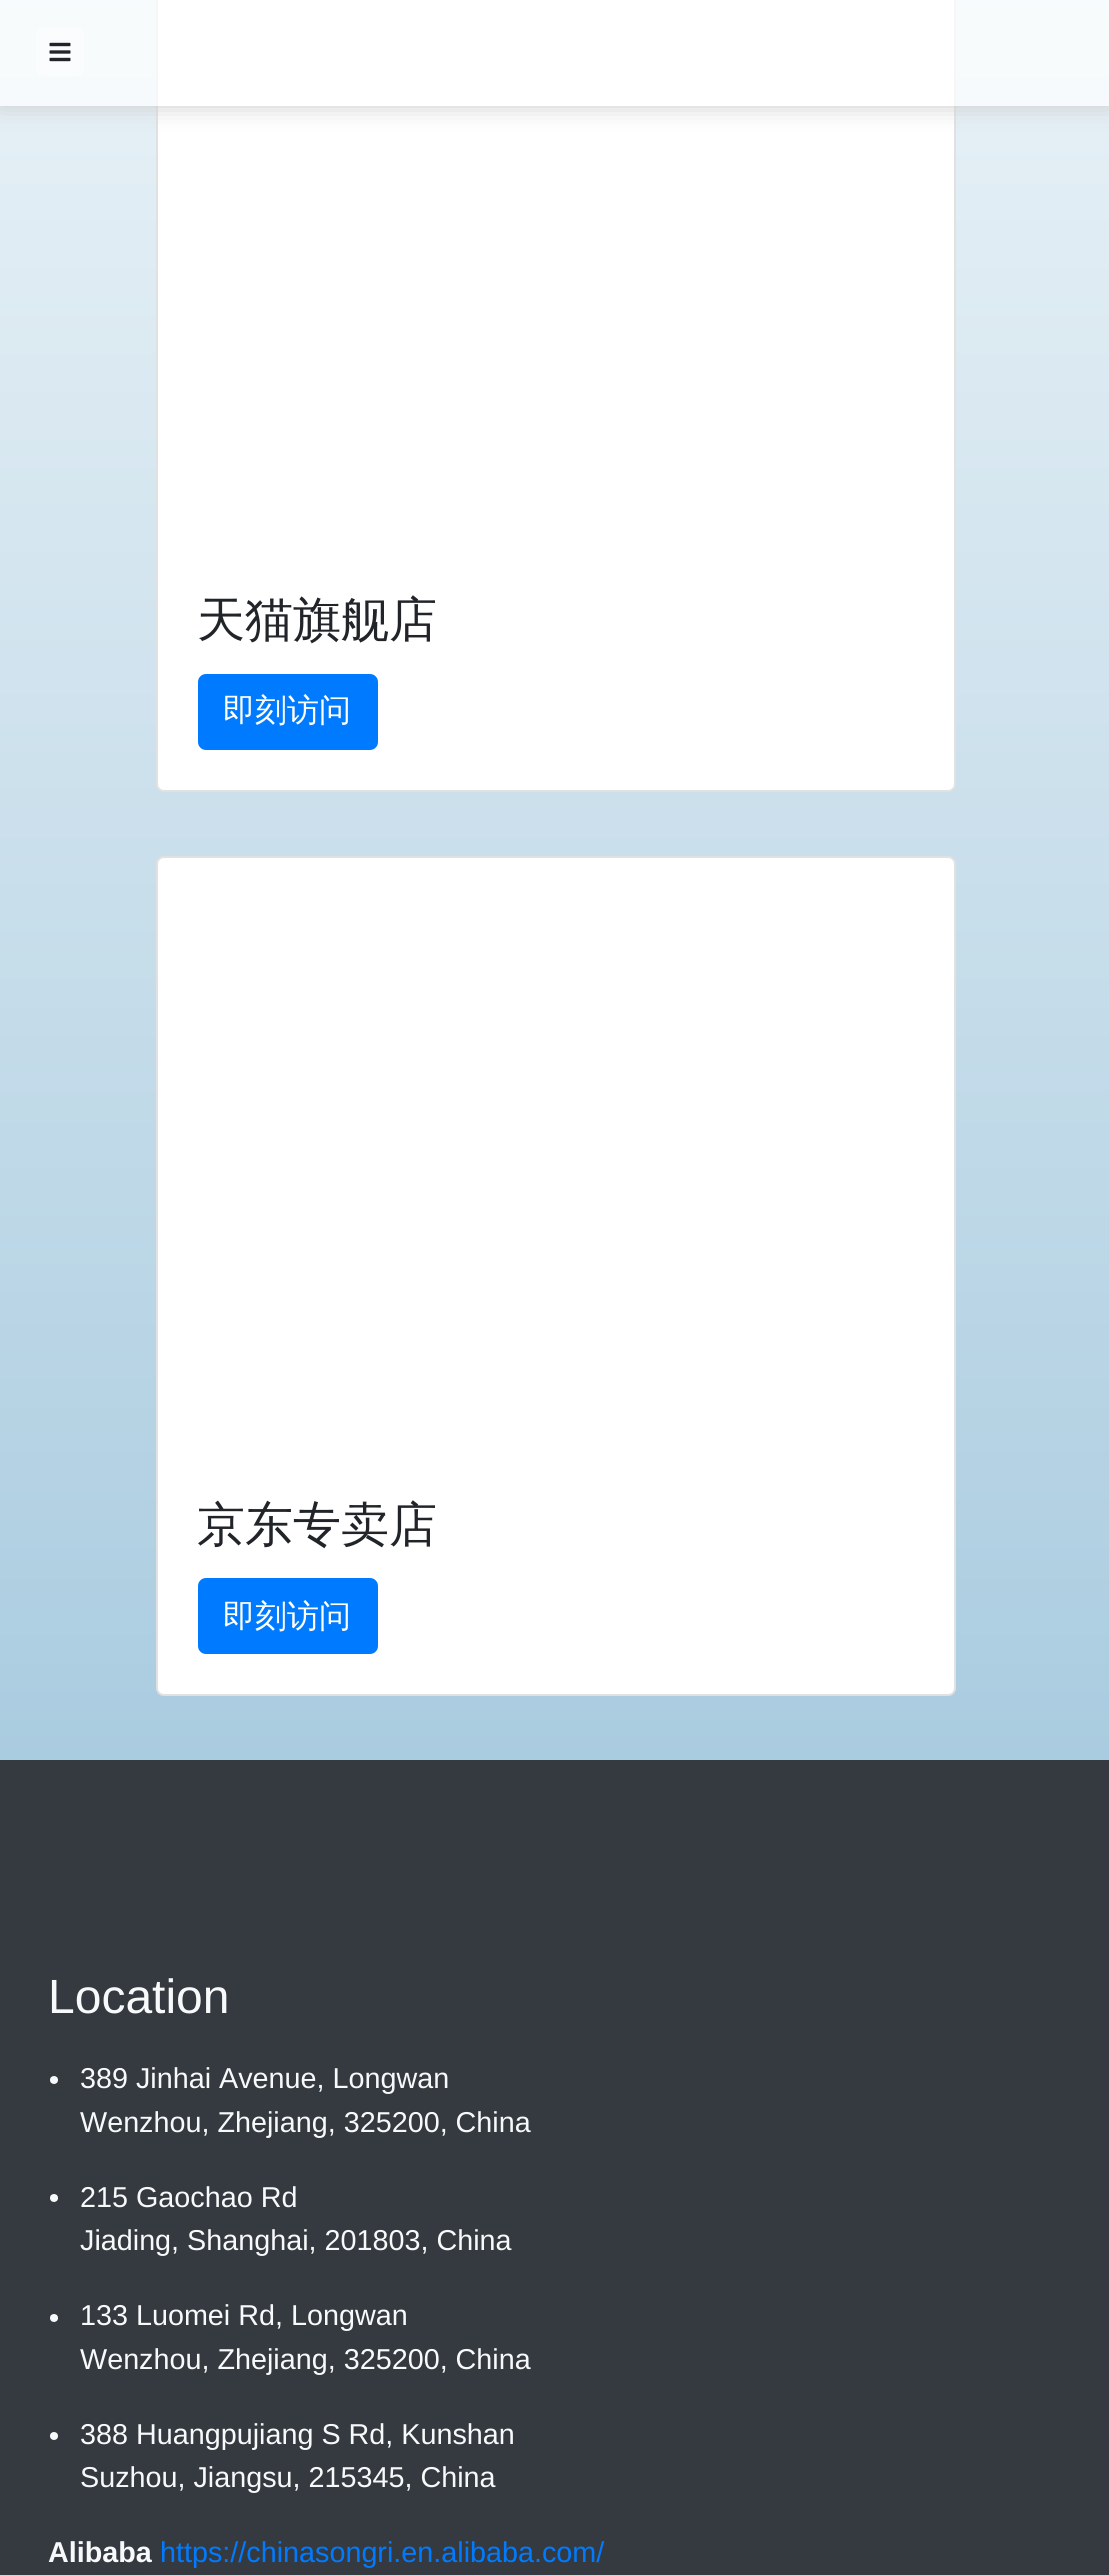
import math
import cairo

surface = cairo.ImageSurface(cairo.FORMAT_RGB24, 1109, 2575)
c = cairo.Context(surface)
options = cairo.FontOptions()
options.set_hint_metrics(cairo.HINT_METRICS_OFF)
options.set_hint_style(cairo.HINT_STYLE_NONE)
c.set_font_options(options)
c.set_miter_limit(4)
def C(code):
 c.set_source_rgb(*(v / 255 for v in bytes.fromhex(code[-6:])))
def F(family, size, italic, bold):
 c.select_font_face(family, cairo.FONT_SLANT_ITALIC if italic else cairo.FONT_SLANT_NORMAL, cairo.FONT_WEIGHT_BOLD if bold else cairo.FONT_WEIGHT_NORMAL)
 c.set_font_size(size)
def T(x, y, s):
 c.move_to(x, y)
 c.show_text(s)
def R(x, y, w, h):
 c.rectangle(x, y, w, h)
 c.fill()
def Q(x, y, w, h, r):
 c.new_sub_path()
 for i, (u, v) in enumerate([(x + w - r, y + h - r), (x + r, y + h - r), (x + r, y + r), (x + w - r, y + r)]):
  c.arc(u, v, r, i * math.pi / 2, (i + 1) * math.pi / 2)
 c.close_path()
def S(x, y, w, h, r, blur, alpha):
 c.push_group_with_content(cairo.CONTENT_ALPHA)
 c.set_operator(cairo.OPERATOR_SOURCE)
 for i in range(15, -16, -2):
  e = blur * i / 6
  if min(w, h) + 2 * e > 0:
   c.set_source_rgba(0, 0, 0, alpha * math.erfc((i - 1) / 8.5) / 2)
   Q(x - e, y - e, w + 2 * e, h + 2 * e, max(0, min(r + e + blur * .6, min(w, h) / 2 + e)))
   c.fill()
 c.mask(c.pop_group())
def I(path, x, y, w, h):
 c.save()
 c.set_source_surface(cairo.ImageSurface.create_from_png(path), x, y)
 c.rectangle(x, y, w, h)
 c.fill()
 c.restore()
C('343a40')
c.paint()
gradient = cairo.LinearGradient(555,-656,555,1760)
gradient.add_color_stop_rgba(0,1,1,1,1)
gradient.add_color_stop_rgba(1,0.667,0.8,0.878,1)
c.set_source(gradient)
R(0,0,1109,1760)
C('ffffff')
Q(156,-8,800,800,8)
c.fill()
Q(157,-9,798,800,7)
c.set_source_rgba(0,0,0,0.12)
c.stroke()
c.save()
c.rectangle(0,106,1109,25)
c.clip()
C('cccccc')
S(0,0,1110,106,0,12,1)
c.restore()
c.set_source_rgba(1,1,1,0.7)
R(0,0,1109,106)
C('fbfcfd')
Q(36,28,48,48,8)
c.fill()
I('1.png',49,42,22,20)
F('WenQuanYi Zen Hei Medium',48,0,0)
C('212529')
T(197,636,'天猫旗舰店')
C('007bff')
Q(199,675,178,74,7)
c.fill_preserve()
c.stroke()
F('WenQuanYi Zen Hei Medium',32,0,0)
C('ffffff')
T(223,721,'即刻访问')
Q(156,856,800,840,8)
c.fill()
Q(157,857,798,838,7)
c.set_source_rgba(0,0,0,0.12)
c.stroke()
F('WenQuanYi Zen Hei Medium',48,0,0)
C('212529')
T(197,1541,'京东专卖店')
C('007bff')
Q(199,1579,178,74,7)
c.fill_preserve()
c.stroke()
F('WenQuanYi Zen Hei Medium',32,0,0)
C('ffffff')
T(223,1627,'即刻访问')
F('Liberation Sans',48,0,0)
C('f8f9fa')
T(48,2013,'Location')
c.new_path()
c.arc(54,2080,4,0,2 * math.pi)
c.fill()
F('Liberation Sans',28.75,0,0)
T(80,2088,'389 Jinhai Avenue, Longwan')
T(80,2132,'Wenzhou, Zhejiang, 325200, China')
c.new_path()
c.arc(54,2198,4,0,2 * math.pi)
c.fill()
T(80,2207,'215 Gaochao Rd')
T(80,2250,'Jiading, Shanghai, 201803, China')
c.new_path()
c.arc(54,2318,4,0,2 * math.pi)
c.fill()
T(80,2325,'133 Luomei Rd, Longwan')
T(80,2369,'Wenzhou, Zhejiang, 325200, China')
c.new_path()
c.arc(54,2436,4,0,2 * math.pi)
c.fill()
T(80,2444,'388 Huangpujiang S Rd, Kunshan')
T(80,2487,'Suzhou, Jiangsu, 215345, China')
F('Liberation Sans',28.75,0,1)
T(48,2562,'Alibaba')
F('Liberation Sans',28.75,0,0)
C('007bff')
T(160,2562,'https://chinasongri.en.alibaba.com/')
surface.write_to_png('o.png')
